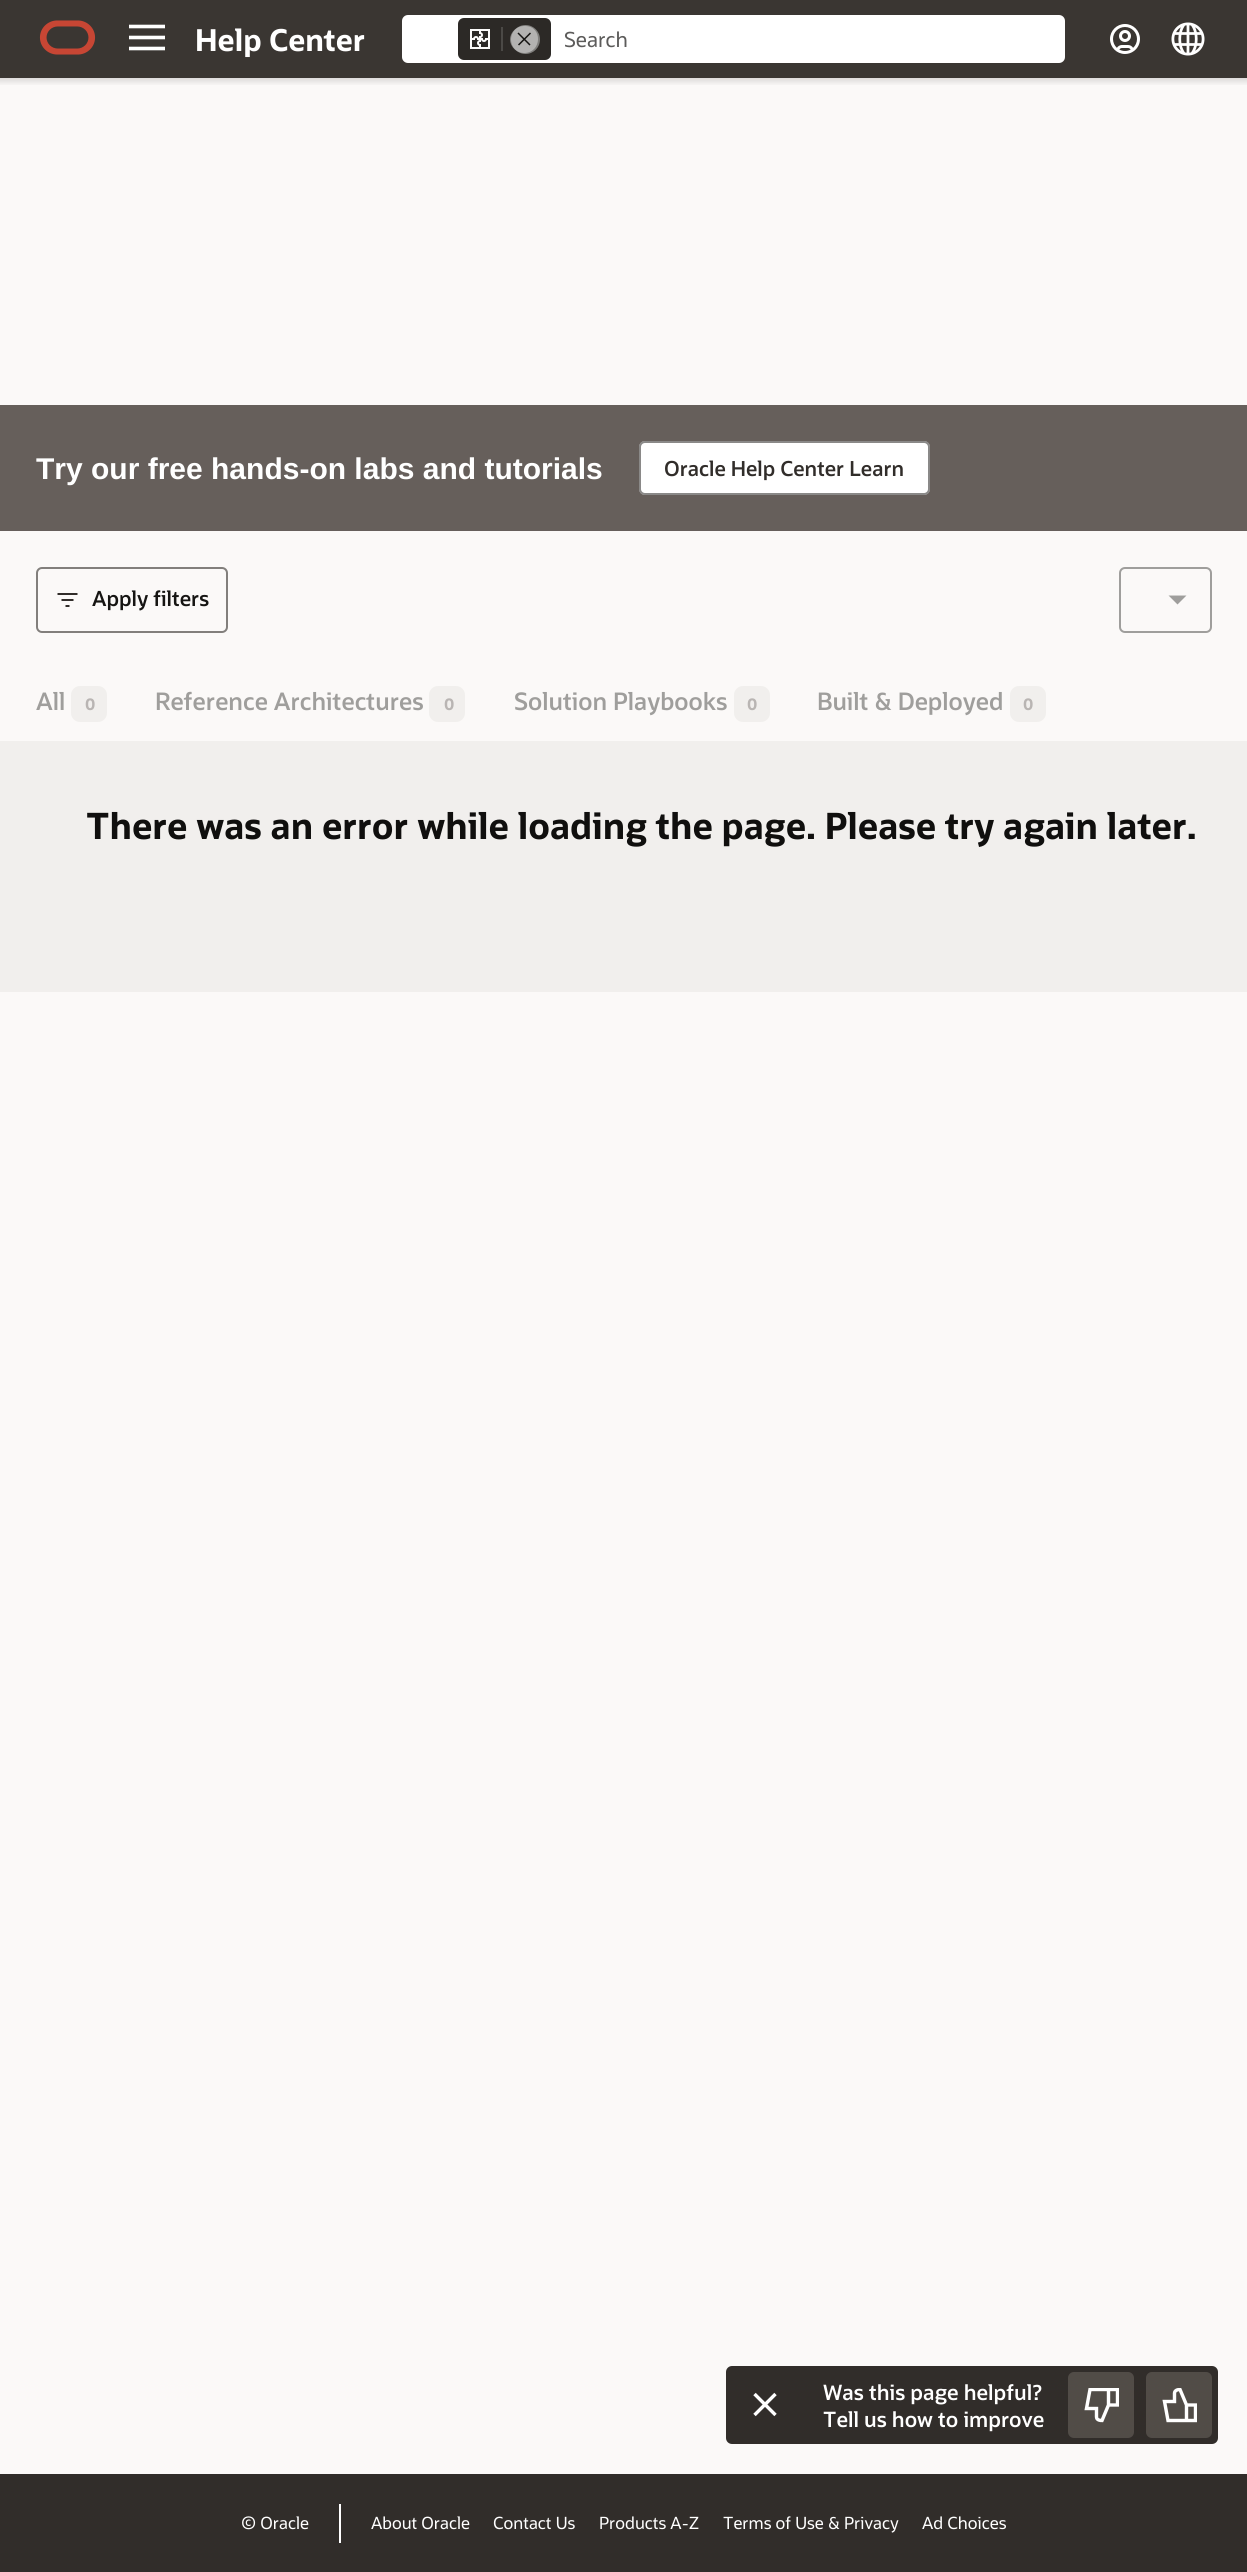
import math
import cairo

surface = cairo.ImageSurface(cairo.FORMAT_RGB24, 1247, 2572)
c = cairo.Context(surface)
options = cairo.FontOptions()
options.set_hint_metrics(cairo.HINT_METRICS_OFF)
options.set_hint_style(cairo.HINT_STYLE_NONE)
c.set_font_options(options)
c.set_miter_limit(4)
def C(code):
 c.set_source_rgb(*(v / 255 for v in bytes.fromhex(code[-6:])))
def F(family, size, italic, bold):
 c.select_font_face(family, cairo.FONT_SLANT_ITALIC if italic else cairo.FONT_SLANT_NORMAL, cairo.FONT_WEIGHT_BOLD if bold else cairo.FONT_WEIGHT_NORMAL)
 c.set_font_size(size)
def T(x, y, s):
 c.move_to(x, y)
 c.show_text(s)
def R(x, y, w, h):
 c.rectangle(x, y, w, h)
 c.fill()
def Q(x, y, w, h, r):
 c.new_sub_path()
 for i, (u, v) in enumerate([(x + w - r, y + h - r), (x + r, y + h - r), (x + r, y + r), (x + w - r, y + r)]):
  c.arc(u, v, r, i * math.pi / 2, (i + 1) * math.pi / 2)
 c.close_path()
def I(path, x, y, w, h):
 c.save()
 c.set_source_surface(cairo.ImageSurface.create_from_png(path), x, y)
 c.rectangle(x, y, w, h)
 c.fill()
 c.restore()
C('fbf9f8')
c.paint()
C('3a3632')
R(0,0,1247,78)
I('1.png',39,20,57,35)
c.new_path()
c.move_to(129,26.5)
c.line_to(165,26.5)
c.move_to(129,37.5)
c.line_to(165,37.5)
c.move_to(129,48.5)
c.line_to(165,48.5)
C('ffffff')
c.set_line_width(3.6)
c.stroke()
F('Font',30,0,1)
T(195,51,'Help Center')
Q(402,15,663,48,6)
c.fill()
C('2c2926')
Q(459,19,91,40,5)
c.fill_preserve()
c.set_line_width(2)
c.stroke()
I('2.png',470,29,20,20)
C('4b4946')
R(501,27,2,24)
C('807f7d')
c.arc(525.5,39.5,15.5,0,2 * math.pi)
c.fill_preserve()
C('2c2926')
c.stroke()
c.set_source_rgba(1,1,1,0.4)
c.new_path()
c.move_to(524,26)
c.curve_to(517,26,510,32,510,39.5)
c.curve_to(510,47,517,53,524,53)
c.curve_to(542,53,543,26,525,26)
c.close_path()
c.fill()
c.new_path()
c.move_to(518,33)
c.line_to(530,45)
c.move_to(530.5,33)
c.line_to(518.5,45)
C('161513')
c.set_line_width(1.5)
c.stroke()
F('Font',20.75,0,0)
C('5c5b5a')
T(564,47,'Search')
I('3.png',1110,24,30,30)
I('4.png',1171,22,34,34)
gradient = cairo.LinearGradient(624,78,624,86)
gradient.add_color_stop_rgba(0,0.867,0.859,0.855,1)
gradient.add_color_stop_rgba(1,0.984,0.976,0.973,1)
c.set_source(gradient)
R(0,78,1247,7)
C('665f5b')
R(0,405,1247,126)
F('Liberation Sans',30,0,1)
C('ffffff')
T(36,479,'Try our free hands-on labs and tutorials')
Q(639,441,291,54,6)
c.fill()
Q(640,442,289,52,5)
c.set_source_rgba(0.086,0.082,0.075,0.5)
c.set_line_width(2)
c.stroke()
F('Font SemiBold',20.6,0,0)
C('312d2a')
T(664,476,'Oracle Help Center Learn')
Q(37,568,190,64,5)
C('827f7c')
c.stroke()
I('5.png',57,593,21,14)
F('Font SemiBold',20.75,0,0)
C('161513')
T(92,606,'Apply filters')
Q(1120,568,91,64,5)
C('9f9e9c')
c.stroke()
c.new_path()
c.move_to(1168.5,595.5)
c.line_to(1177.5,604.5)
c.line_to(1186.5,595.5)
c.close_path()
c.fill()
F('Font SemiBold',24,0,0)
T(36,710,'All')
C('f1efed')
Q(71,686,36,36,9)
c.fill()
F('Font',16,0,1)
C('b9b5b3')
T(85,710,'0')
F('Font SemiBold',24,0,0)
C('9f9e9c')
T(155,710,'Reference Architectures')
C('f1efed')
Q(429,686,36,36,9)
c.fill()
F('Font',16,0,1)
C('b9b5b3')
T(444,710,'0')
F('Font SemiBold',24,0,0)
C('9f9e9c')
T(514,710,'Solution Playbooks')
C('f1efed')
Q(734,686,36,36,9)
c.fill()
F('Font',16,0,1)
C('b9b5b3')
T(747,710,'0')
F('Font SemiBold',24,0,0)
C('9f9e9c')
T(817,710,'Built & Deployed')
C('f1efed')
Q(1010,686,36,36,9)
c.fill()
F('Font',16,0,1)
C('b9b5b3')
T(1023,710,'0')
C('f1efed')
R(0,741,1247,251)
F('Font',36,0,1)
C('100f0e')
T(86,839,'There was an error while loading the page. Please try again later.')
C('312d2a')
Q(726,2366,492,78,6)
c.fill()
c.new_path()
c.move_to(754.5,2394)
c.line_to(775.5,2415)
c.move_to(775.5,2394)
c.line_to(754.5,2415)
C('ffffff')
c.set_line_width(3.4)
c.stroke()
F('Font SemiBold',21,0,0)
T(823,2400,'Was this page helpful?')
T(823,2427,'Tell us how to improve')
C('514c47')
Q(1068,2372,66,66,6)
c.fill()
c.save()
c.rectangle(1083,2388,36,35)
c.clip()
c.new_path()
c.move_to(1108.5,2405)
c.line_to(1102,2420.5)
c.curve_to(1097.5,2420.5,1096.5,2418.5,1096.5,2417)
c.line_to(1096.5,2408.5)
c.line_to(1086.5,2408.5)
c.line_to(1090,2389.5)
c.line_to(1108.5,2389.5)
c.move_to(1108.5,2405)
c.line_to(1117.5,2405)
c.line_to(1117.5,2389.5)
c.line_to(1108.5,2389.5)
c.move_to(1108.5,2405)
c.line_to(1108.5,2389.5)
C('ffffff')
c.stroke()
c.restore()
Q(1146,2372,66,66,6)
c.fill()
c.save()
c.rectangle(1161,2388,36,35)
c.clip()
c.new_path()
c.move_to(1186.5,2405)
c.line_to(1180,2389.5)
c.curve_to(1175.5,2389.5,1174.5,2392,1174.5,2393)
c.line_to(1174.5,2401.5)
c.line_to(1164.5,2401.5)
c.line_to(1168,2420.5)
c.line_to(1186.5,2420.5)
c.move_to(1186.5,2405)
c.line_to(1195.5,2405)
c.line_to(1195.5,2420.5)
c.line_to(1186.5,2420.5)
c.move_to(1186.5,2405)
c.line_to(1186.5,2420.5)
C('ffffff')
c.stroke()
c.restore()
C('312d2a')
R(0,2474,1247,98)
C('ffffff')
R(339,2504,2,39)
F('Font',16.75,0,0)
T(241,2529,'© Oracle')
T(371,2529,'About Oracle')
T(493,2529,'Contact Us')
T(599,2529,'Products A-Z')
T(723,2529,'Terms of Use & Privacy')
T(922,2529,'Ad Choices')
surface.write_to_png('o.png')
